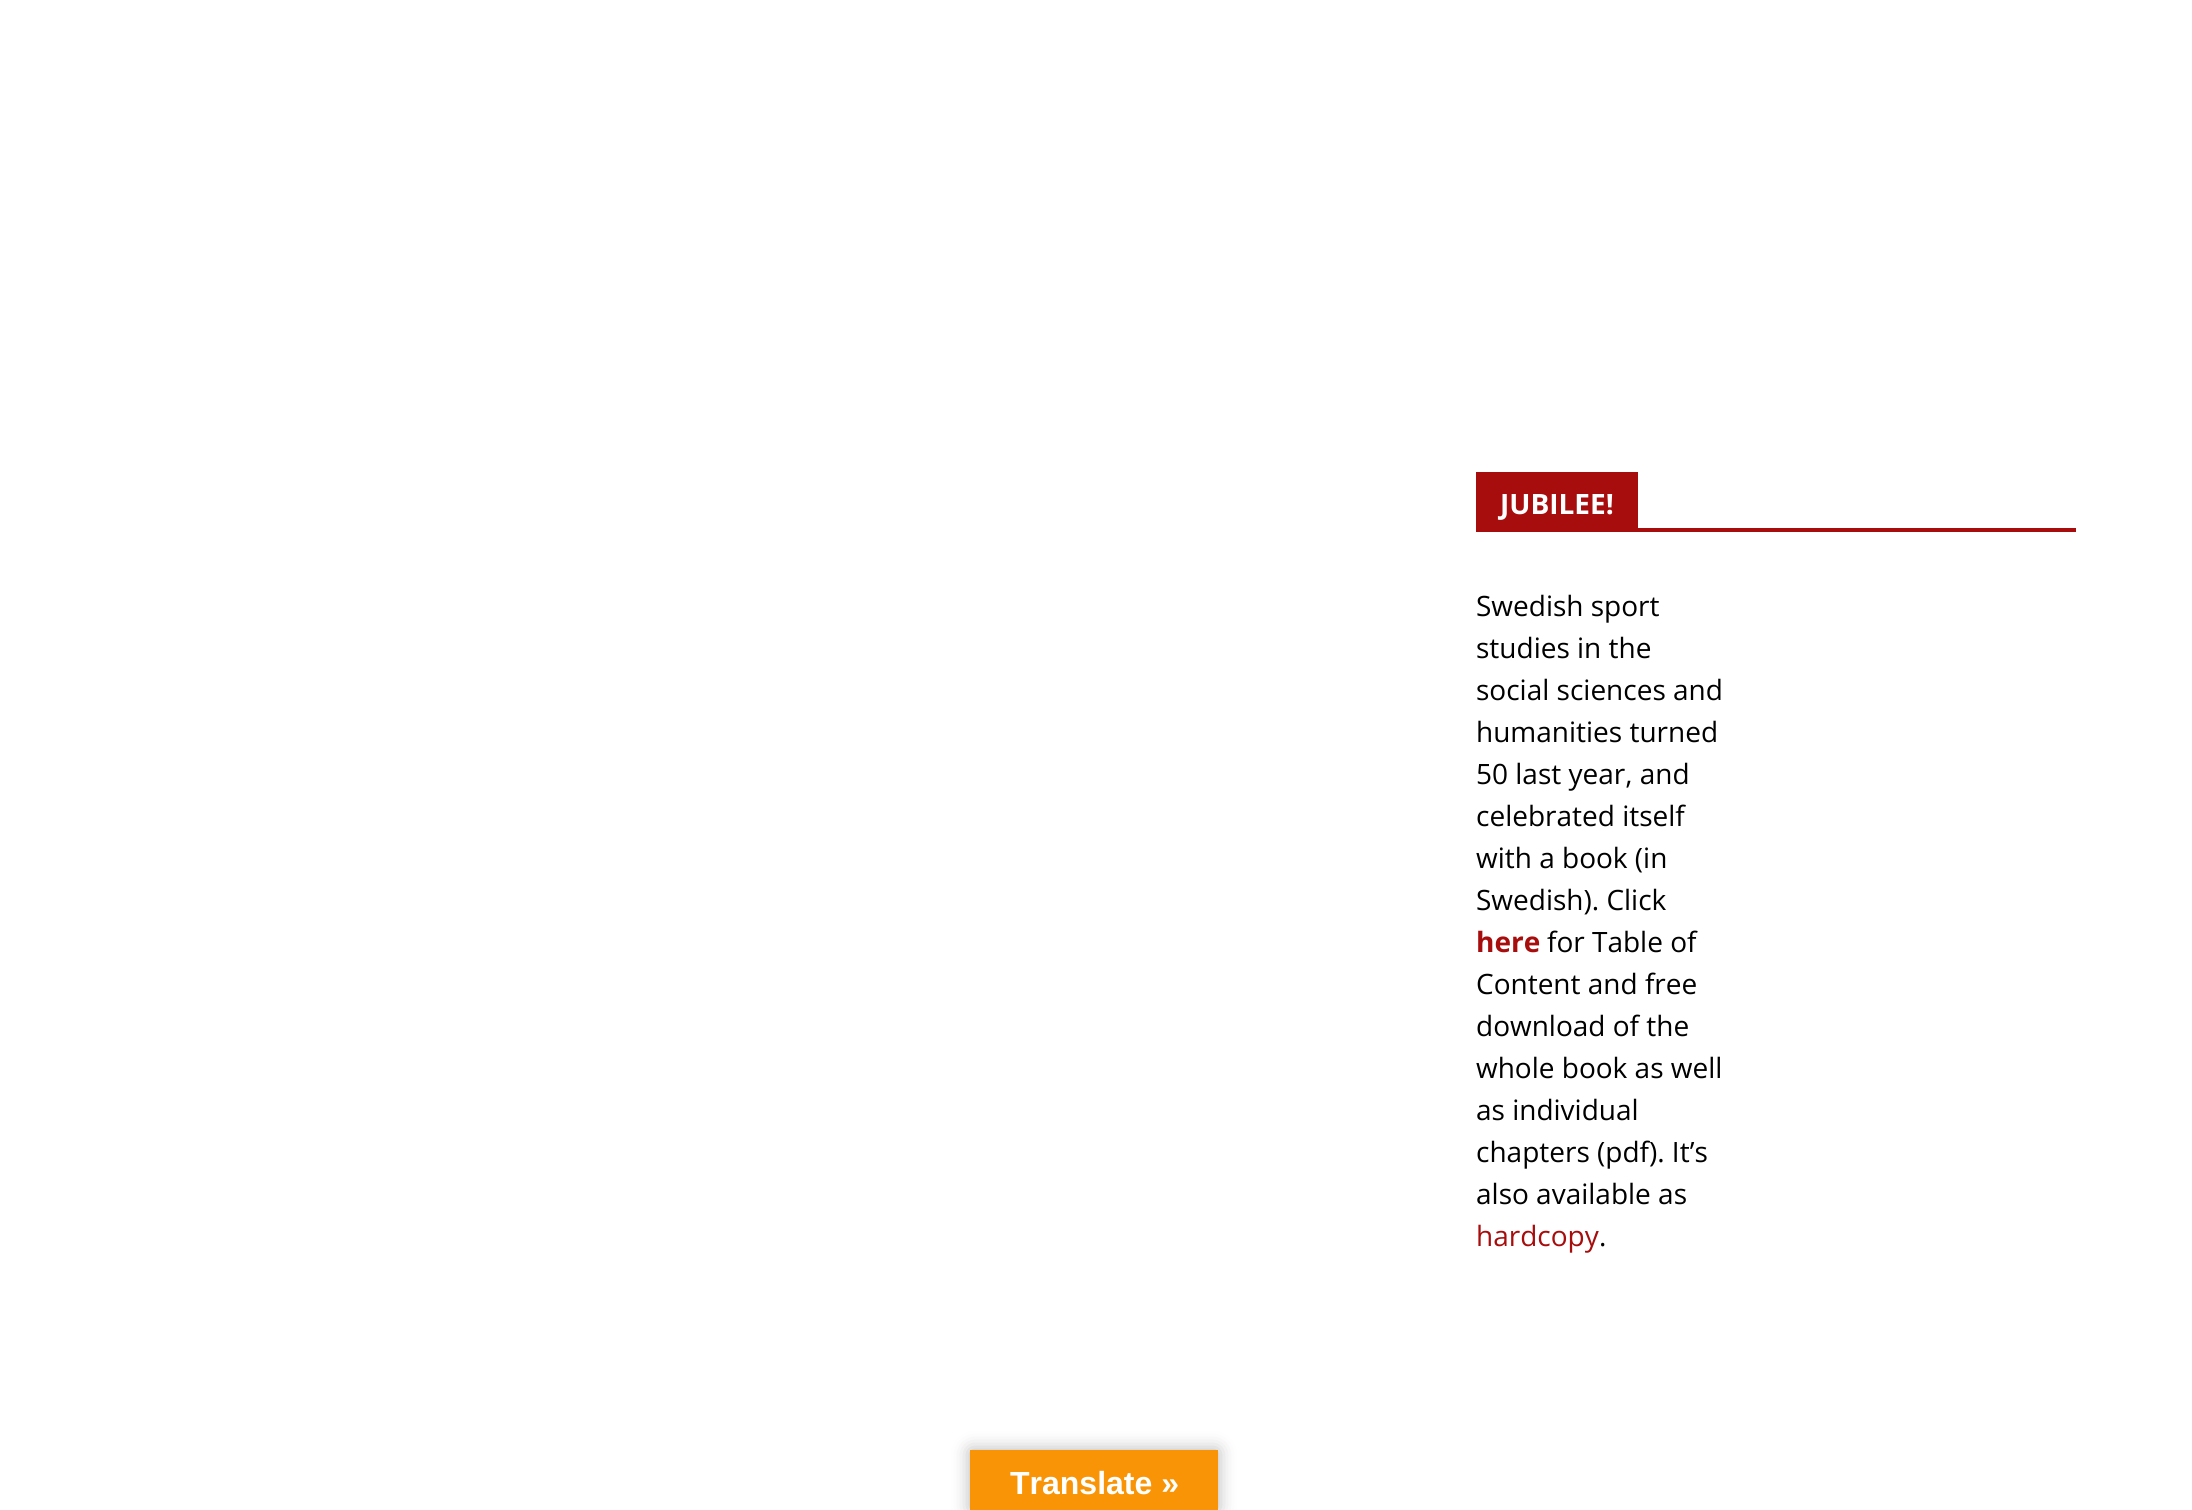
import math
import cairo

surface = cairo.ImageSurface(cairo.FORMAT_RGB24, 2192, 1510)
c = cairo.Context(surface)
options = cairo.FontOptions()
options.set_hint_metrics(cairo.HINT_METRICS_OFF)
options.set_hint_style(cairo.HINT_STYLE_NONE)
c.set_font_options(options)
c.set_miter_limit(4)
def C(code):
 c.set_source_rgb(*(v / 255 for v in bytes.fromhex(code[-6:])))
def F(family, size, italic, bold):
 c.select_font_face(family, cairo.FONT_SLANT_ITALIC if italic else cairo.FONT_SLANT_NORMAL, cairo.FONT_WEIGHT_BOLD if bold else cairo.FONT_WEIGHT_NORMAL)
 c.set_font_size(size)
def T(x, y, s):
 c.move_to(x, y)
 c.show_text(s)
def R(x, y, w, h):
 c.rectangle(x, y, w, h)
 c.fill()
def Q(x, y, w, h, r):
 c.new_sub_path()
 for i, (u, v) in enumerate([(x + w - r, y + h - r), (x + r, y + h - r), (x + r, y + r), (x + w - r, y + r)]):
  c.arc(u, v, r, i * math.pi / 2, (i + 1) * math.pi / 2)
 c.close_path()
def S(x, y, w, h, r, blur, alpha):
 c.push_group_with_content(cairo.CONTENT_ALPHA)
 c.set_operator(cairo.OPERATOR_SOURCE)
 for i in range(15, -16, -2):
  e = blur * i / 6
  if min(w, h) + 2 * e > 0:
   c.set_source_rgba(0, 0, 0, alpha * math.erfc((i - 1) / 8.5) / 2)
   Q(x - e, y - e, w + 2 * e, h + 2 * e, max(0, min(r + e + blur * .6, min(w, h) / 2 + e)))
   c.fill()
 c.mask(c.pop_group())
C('ffffff')
c.paint()
C('a70d0d')
R(1476,528,600,4)
R(1476,472,162,56)
F('Open Sans',28,0,1)
C('ffffff')
T(1500,514,'JUBILEE!')
F('Open Sans',28,0,0)
C('000000')
T(1476,616,'Swedish sport')
T(1476,658,'studies in the')
T(1476,700,'social sciences and')
T(1476,742,'humanities turned')
T(1476,784,'50 last year, and')
T(1476,826,'celebrated itself')
T(1476,868,'with a book (in')
T(1476,910,'Swedish). Click')
F('Open Sans',28,0,1)
C('a70d0d')
T(1476,952,'here')
F('Open Sans',28,0,0)
C('000000')
T(1547,952,'for Table of')
T(1476,994,'Content and free')
T(1476,1036,'download of the')
T(1476,1078,'whole book as well')
T(1476,1120,'as individual')
T(1476,1162,'chapters (pdf). It’s')
T(1476,1204,'also available as')
C('a70d0d')
T(1476,1246,'hardcopy')
C('000000')
T(1599,1246,'.')
C('000000')
S(970,1450,248,60,0,9,.3)
C('f89406')
R(970,1450,248,60)
F('Liberation Sans',32,0,1)
C('ffffff')
T(1010,1494,'Translate »')
surface.write_to_png('o.png')
